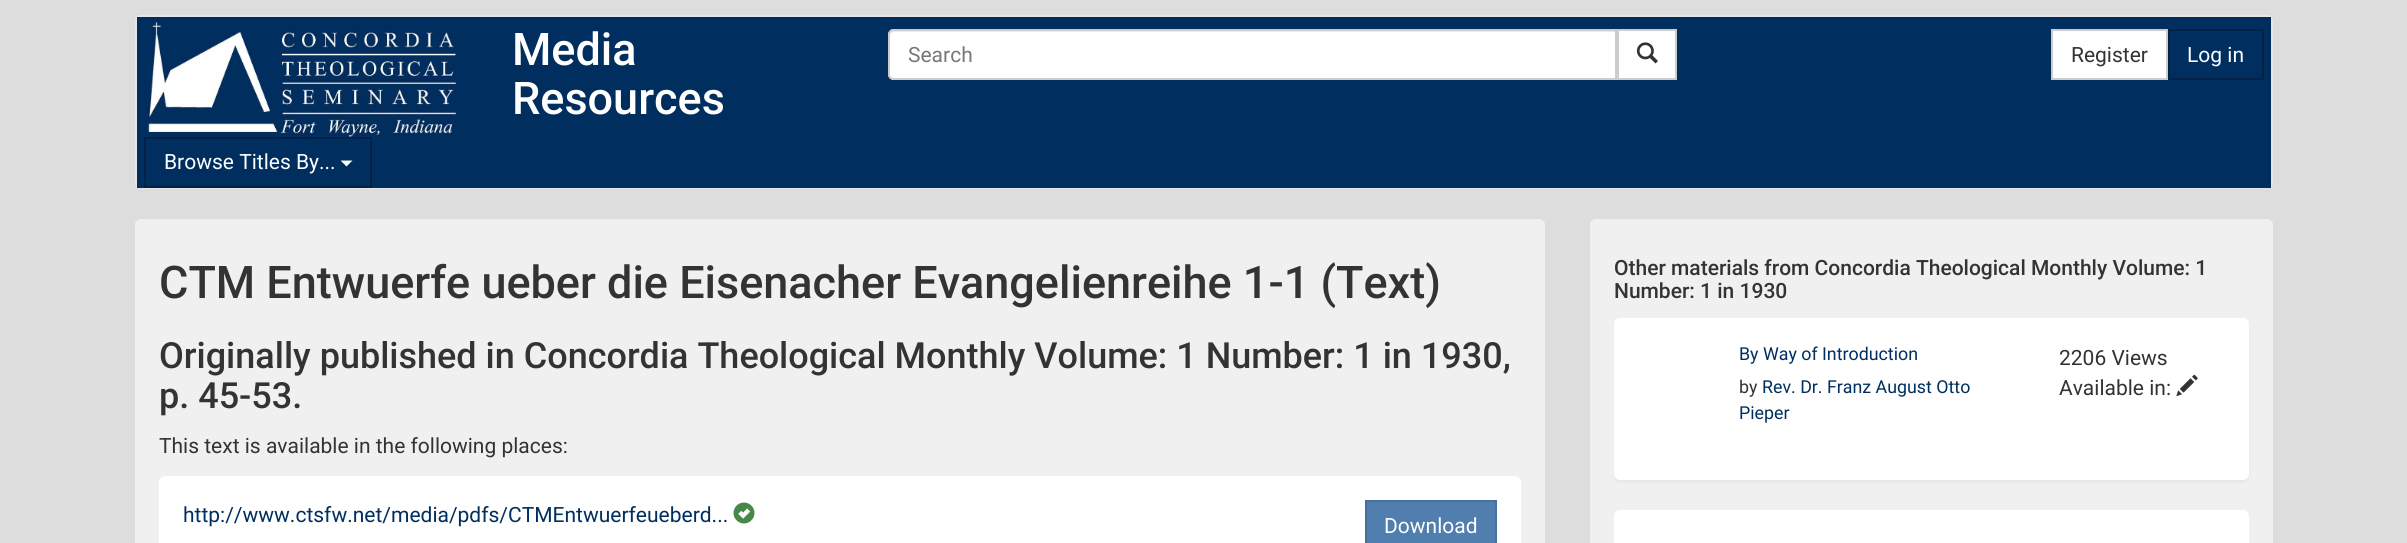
import math
import cairo

surface = cairo.ImageSurface(cairo.FORMAT_RGB24, 2407, 543)
c = cairo.Context(surface)
options = cairo.FontOptions()
options.set_hint_metrics(cairo.HINT_METRICS_OFF)
options.set_hint_style(cairo.HINT_STYLE_NONE)
c.set_font_options(options)
c.set_miter_limit(4)
def C(code):
 c.set_source_rgb(*(v / 255 for v in bytes.fromhex(code[-6:])))
def F(family, size, italic, bold):
 c.select_font_face(family, cairo.FONT_SLANT_ITALIC if italic else cairo.FONT_SLANT_NORMAL, cairo.FONT_WEIGHT_BOLD if bold else cairo.FONT_WEIGHT_NORMAL)
 c.set_font_size(size)
def T(x, y, s):
 c.move_to(x, y)
 c.show_text(s)
def R(x, y, w, h):
 c.rectangle(x, y, w, h)
 c.fill()
def Q(x, y, w, h, r):
 c.new_sub_path()
 for i, (u, v) in enumerate([(x + w - r, y + h - r), (x + r, y + h - r), (x + r, y + r), (x + w - r, y + r)]):
  c.arc(u, v, r, i * math.pi / 2, (i + 1) * math.pi / 2)
 c.close_path()
def S(x, y, w, h, r, blur, alpha):
 c.push_group_with_content(cairo.CONTENT_ALPHA)
 c.set_operator(cairo.OPERATOR_SOURCE)
 for i in range(15, -16, -2):
  e = blur * i / 6
  if min(w, h) + 2 * e > 0:
   c.set_source_rgba(0, 0, 0, alpha * math.erfc((i - 1) / 8.5) / 2)
   Q(x - e, y - e, w + 2 * e, h + 2 * e, max(0, min(r + e + blur * .6, min(w, h) / 2 + e)))
   c.fill()
 c.mask(c.pop_group())
def I(path, x, y, w, h):
 c.save()
 c.set_source_surface(cairo.ImageSurface.create_from_png(path), x, y)
 c.rectangle(x, y, w, h)
 c.fill()
 c.restore()
C('dddddd')
c.paint()
Q(136,16,2136,172,5)
C('e7e7e7')
c.stroke()
C('002e5f')
R(137,17,2134,171)
I('1.png',144,21,313,116)
F('Roboto Medium',45,0,0)
C('ffffff')
T(512,65,'Media')
T(512,114,'Resources')
c.new_path()
c.move_to(894,29)
c.line_to(1617,29)
c.line_to(1617,80)
c.line_to(894,80)
c.curve_to(890.5,80,888,77.5,888,74)
c.line_to(888,35)
c.curve_to(888,31.5,890.5,29,894,29)
c.close_path()
c.fill()
C('ececec')
c.new_path()
c.move_to(894,32)
c.line_to(1616,32)
c.line_to(1616,30)
c.line_to(895,30)
c.curve_to(892,30,890,33,890,36)
c.curve_to(890,34,892,32,894,32)
c.close_path()
c.fill()
c.new_path()
c.move_to(894,30)
c.line_to(1616,30)
c.line_to(1616,79)
c.line_to(894,79)
c.curve_to(891,79,889,77,889,74)
c.line_to(889,35)
c.curve_to(889,32,891,30,894,30)
c.close_path()
C('cccccc')
c.stroke()
F('Roboto',21,0,0)
C('777777')
T(908,62,'Search')
C('ffffff')
c.rectangle(1618,30,58,49)
c.fill_preserve()
C('cccccc')
c.stroke()
I('2.png',1636,42,22,22)
C('ffffff')
c.rectangle(2052,30,115,49)
c.fill_preserve()
C('cccccc')
c.stroke()
C('333333')
T(2071,62,'Register')
c.rectangle(2169,30,94,49)
C('002246')
c.stroke()
C('ffffff')
T(2187,62,'Log in')
c.rectangle(145,138,226,49)
C('002246')
c.stroke()
C('ffffff')
T(164,169,'Browse Titles By...')
c.new_path()
c.move_to(340.5,160.5)
c.line_to(352.5,160.5)
c.line_to(346.5,166.5)
c.close_path()
c.fill()
C('f0f0f0')
Q(135,219,1410,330,6)
c.fill()
F('Roboto Medium',45,0,0)
C('333333')
T(159,298,'CTM Entwuerfe ueber die Eisenacher Evangelienreihe 1-1 (Text)')
F('Roboto Medium',36,0,0)
T(159,368,'Originally published in Concordia Theological Monthly Volume: 1 Number: 1 in 1930,')
T(159,408,'p. 45-53.')
F('Roboto',21,0,0)
T(159,453,'This text is available in the following places:')
C('ffffff')
Q(159,476,1362,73,6)
c.fill()
C('002e5f')
T(183,522,'http://www.ctsfw.net/media/pdfs/CTMEntwuerfeueberd...')
I('3.png',733,502,22,22)
C('4f7eaf')
c.rectangle(1366,501,130,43)
c.fill_preserve()
C('47719d')
c.stroke()
C('ffffff')
T(1384,533,'Download')
C('f0f0f0')
Q(1590,219,683,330,6)
c.fill()
F('Roboto Medium',21,0,0)
C('333333')
T(1614,275,'Other materials from Concordia Theological Monthly Volume: 1')
T(1614,298,'Number: 1 in 1930')
C('000000')
S(1614,320,635,162,6,1,.05)
C('ffffff')
Q(1614,318,635,162,6)
c.fill()
F('Roboto',17.8,0,0)
C('002e5f')
T(1739,360,'By Way of Introduction')
C('333333')
T(1739,393,'by')
C('002e5f')
T(1762,393,'Rev. Dr. Franz August Otto')
T(1739,419,'Pieper')
F('Roboto',21,0,0)
C('333333')
T(2059,365,'2206 Views')
T(2059,395,'Available in:')
I('4.png',2176,374,22,23)
C('ffffff')
Q(1614,510,635,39,6)
c.fill()
surface.write_to_png('o.png')
